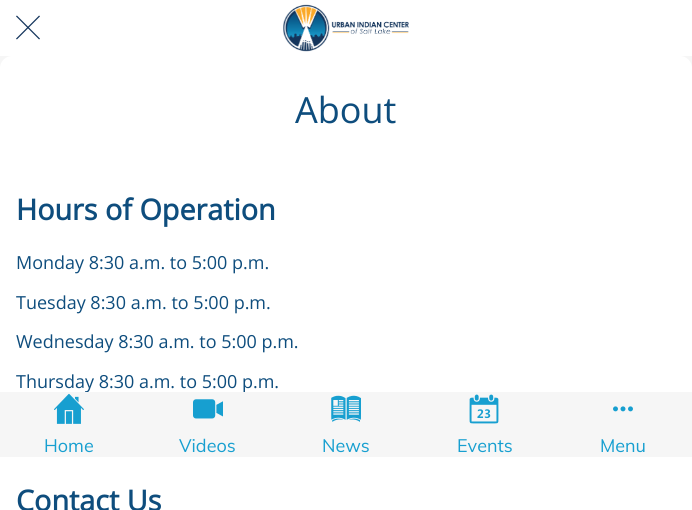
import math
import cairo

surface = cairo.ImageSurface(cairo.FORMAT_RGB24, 692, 510)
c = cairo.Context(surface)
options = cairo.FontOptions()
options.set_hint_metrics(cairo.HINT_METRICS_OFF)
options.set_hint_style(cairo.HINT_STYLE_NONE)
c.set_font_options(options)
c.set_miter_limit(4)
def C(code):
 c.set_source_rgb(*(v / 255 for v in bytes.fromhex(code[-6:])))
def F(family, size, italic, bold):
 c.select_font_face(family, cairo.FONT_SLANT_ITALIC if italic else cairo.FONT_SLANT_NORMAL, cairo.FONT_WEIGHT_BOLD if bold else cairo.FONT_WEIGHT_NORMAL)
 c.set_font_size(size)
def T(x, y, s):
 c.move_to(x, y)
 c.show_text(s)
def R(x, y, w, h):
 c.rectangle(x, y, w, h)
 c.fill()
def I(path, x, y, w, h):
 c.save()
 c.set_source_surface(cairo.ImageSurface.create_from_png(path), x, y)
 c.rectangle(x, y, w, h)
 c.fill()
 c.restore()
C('f6f6f6')
c.paint()
C('ffffff')
c.new_path()
c.move_to(12,56)
c.line_to(680,56)
c.curve_to(686.5,56,692,61.5,692,68)
c.line_to(692,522)
c.line_to(0,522)
c.line_to(0,68)
c.curve_to(0,61.5,5.5,56,12,56)
c.close_path()
c.fill()
F('Open Sans',36,0,0)
C('0e4d7d')
T(295,123,'About')
F('Open Sans',28.75,0,1)
T(16,220,'Hours of Operation')
F('Open Sans',18,0,0)
T(16,269,'Monday 8:30 a.m. to 5:00 p.m.')
T(16,309,'Tuesday 8:30 a.m. to 5:00 p.m.')
T(16,348,'Wednesday 8:30 a.m. to 5:00 p.m.')
T(16,388,'Thursday 8:30 a.m. to 5:00 p.m.')
F('Open Sans',28.75,0,1)
T(16,511,'Contact Us')
C('ffffff')
R(0,0,692,56)
I('1.png',16,15,24,25)
I('2.png',283,4,126,48)
C('f6f6f6')
R(0,392,692,65)
I('3.png',54,393,30,31)
F('Muli',18,0,0)
C('179fd0')
T(44,452,'Home')
I('4.png',193,399,30,20)
T(179,452,'Videos')
I('5.png',331,395,30,27)
T(322,452,'News')
I('6.png',469,394,30,30)
T(457,452,'Events')
I('7.png',613,406,20,6)
T(600,452,'Menu')
surface.write_to_png('o.png')
